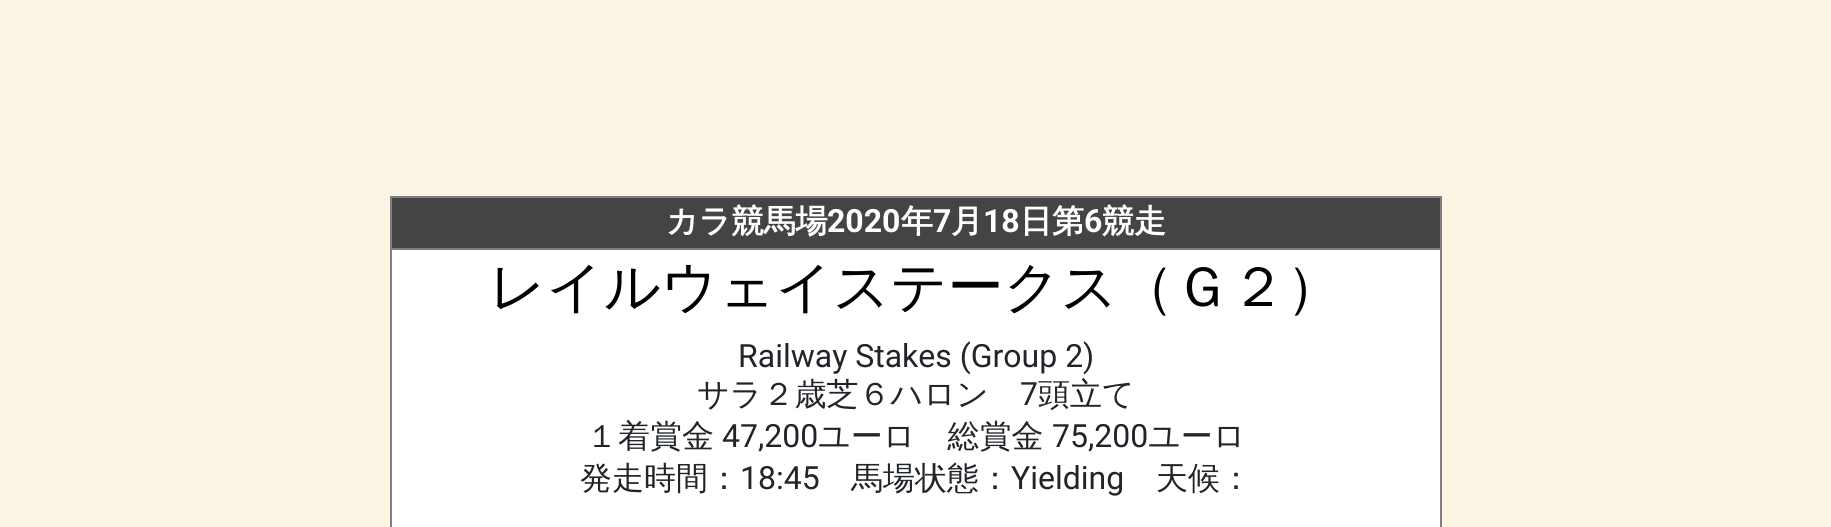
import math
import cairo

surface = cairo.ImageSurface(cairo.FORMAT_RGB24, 1831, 527)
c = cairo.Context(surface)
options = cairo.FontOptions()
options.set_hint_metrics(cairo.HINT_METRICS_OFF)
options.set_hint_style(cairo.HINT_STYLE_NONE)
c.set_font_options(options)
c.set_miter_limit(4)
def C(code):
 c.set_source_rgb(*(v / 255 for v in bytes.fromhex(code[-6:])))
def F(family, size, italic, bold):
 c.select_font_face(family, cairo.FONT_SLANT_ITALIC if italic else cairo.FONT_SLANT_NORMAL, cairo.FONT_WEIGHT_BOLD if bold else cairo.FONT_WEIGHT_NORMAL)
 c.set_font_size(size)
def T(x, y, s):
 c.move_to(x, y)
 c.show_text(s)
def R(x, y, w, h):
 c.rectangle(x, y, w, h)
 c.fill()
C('fdf5e3')
c.paint()
C('ffffff')
R(392,250,1048,277)
C('808080')
R(390,196,1052,2)
R(1440,196,2,331)
R(390,196,2,331)
C('444444')
R(392,198,1048,50)
F('WenQuanYi Zen Hei',32,0,1)
C('ffffff')
T(666,232,'カラ競馬場')
F('Roboto',32,0,1)
T(827,232,'2020')
F('WenQuanYi Zen Hei',32,0,1)
T(901,232,'年')
F('Roboto',32,0,1)
T(933,232,'7')
F('WenQuanYi Zen Hei',32,0,1)
T(951,232,'月')
F('Roboto',32,0,1)
T(983,232,'18')
F('WenQuanYi Zen Hei',32,0,1)
T(1020,232,'日第')
F('Roboto',32,0,1)
T(1084,232,'6')
F('WenQuanYi Zen Hei',32,0,1)
T(1102,232,'競走')
C('808080')
R(390,248,1052,2)
F('WenQuanYi Zen Hei Medium',56,0,0)
C('000000')
T(489,306,'レイルウェイステークス（Ｇ２）')
F('Roboto',32,0,0)
C('212529')
T(738,367,'Railway Stakes (Group 2)')
F('WenQuanYi Zen Hei Medium',32,0,0)
T(697,405,'サラ２歳芝６ハロン')
F('Roboto',32,0,0)
T(1020,405,'7')
F('WenQuanYi Zen Hei Medium',32,0,0)
T(1038,405,'頭立て')
T(586,447,'１着賞金')
F('Roboto',32,0,0)
T(722,447,'47,200')
F('WenQuanYi Zen Hei Medium',32,0,0)
T(818,447,'ユーロ　総賞金')
F('Roboto',32,0,0)
T(1052,447,'75,200')
F('WenQuanYi Zen Hei Medium',32,0,0)
T(1148,447,'ユーロ')
T(580,489,'発走時間：')
F('Roboto',32,0,0)
T(740,489,'18:45')
F('WenQuanYi Zen Hei Medium',32,0,0)
T(851,489,'馬場状態：')
F('Roboto',32,0,0)
T(1011,489,'Yielding')
F('WenQuanYi Zen Hei Medium',32,0,0)
T(1156,489,'天候：')
surface.write_to_png('o.png')
